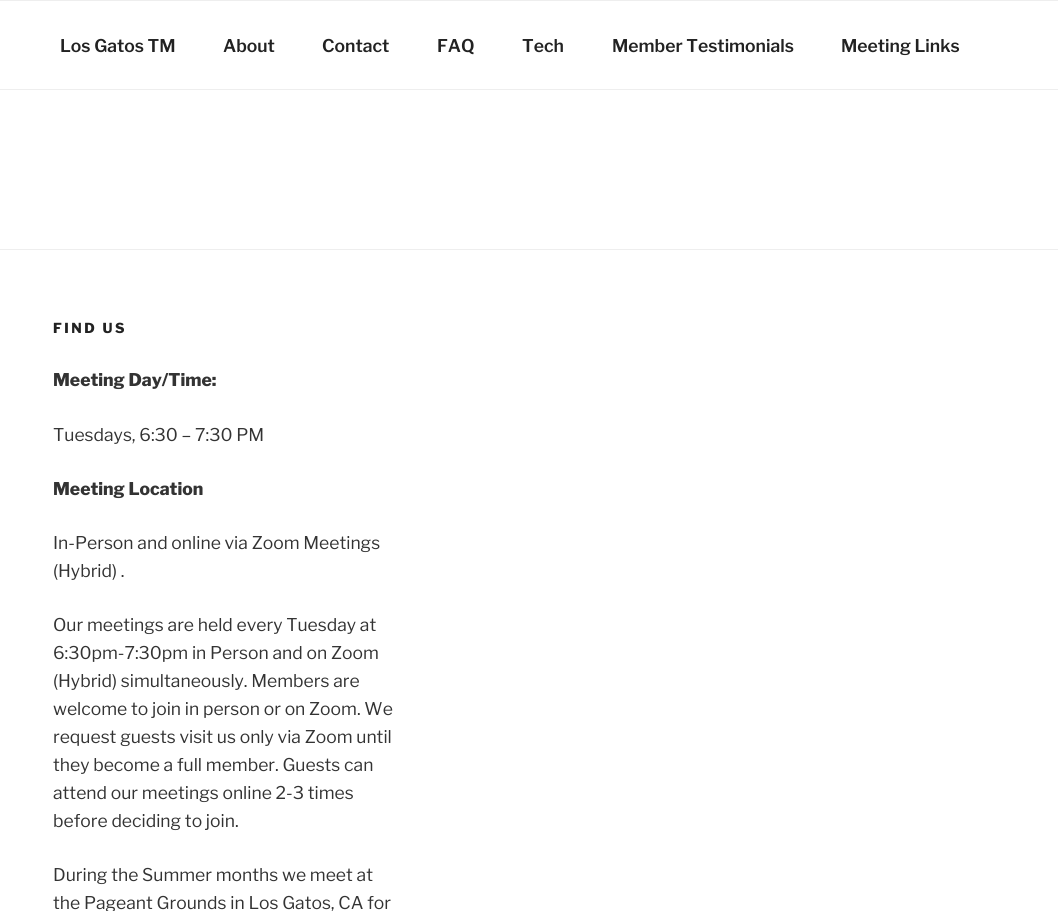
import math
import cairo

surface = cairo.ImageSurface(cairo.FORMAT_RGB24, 1058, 911)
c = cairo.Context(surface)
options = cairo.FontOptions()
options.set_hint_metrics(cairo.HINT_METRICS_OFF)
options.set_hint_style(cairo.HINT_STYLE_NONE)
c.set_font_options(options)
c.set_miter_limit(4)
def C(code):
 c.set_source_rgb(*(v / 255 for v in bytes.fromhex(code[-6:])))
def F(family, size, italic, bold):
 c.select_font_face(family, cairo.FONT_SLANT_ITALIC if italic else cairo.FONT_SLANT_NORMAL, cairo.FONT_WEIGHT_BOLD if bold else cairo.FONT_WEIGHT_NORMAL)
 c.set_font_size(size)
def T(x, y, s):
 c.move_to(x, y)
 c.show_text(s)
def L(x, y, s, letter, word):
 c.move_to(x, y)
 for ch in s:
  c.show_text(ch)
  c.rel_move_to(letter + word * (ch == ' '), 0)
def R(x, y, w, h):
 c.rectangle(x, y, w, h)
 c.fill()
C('ffffff')
c.paint()
C('eeeeee')
R(0,0,1058,1)
R(0,89,1058,1)
F('Libre Franklin SemiBold',17.5,0,0)
C('222222')
T(60,52,'Los Gatos TM')
T(223,52,'About')
T(322,52,'Contact')
T(437,52,'FAQ')
T(522,52,'Tech')
T(612,52,'Member Testimonials')
T(841,52,'Meeting Links')
C('eeeeee')
R(0,249,1058,1)
F('Libre Franklin ExtraBold',13.75,0,0)
C('222222')
L(53,333,'FIND US',2.5,0)
F('Libre Franklin ExtraBold',17.5,0,0)
C('333333')
T(53,386,'Meeting Day/Time:')
F('Libre Franklin',17.5,0,0)
T(53,441,'Tuesdays, 6:30 – 7:30 PM')
F('Libre Franklin ExtraBold',17.5,0,0)
T(53,495,'Meeting Location')
F('Libre Franklin',17.5,0,0)
T(53,549,'In-Person and online via Zoom Meetings')
T(53,577,'(Hybrid) .')
T(53,631,'Our meetings are held every Tuesday at')
T(53,659,'6:30pm-7:30pm in Person and on Zoom')
T(53,687,'(Hybrid) simultaneously. Members are')
T(53,715,'welcome to join in person or on Zoom. We')
T(53,743,'request guests visit us only via Zoom until')
T(53,771,'they become a full member. Guests can')
T(53,799,'attend our meetings online 2-3 times')
T(53,827,'before deciding to join.')
T(53,881,'During the Summer months we meet at')
T(53,909,'the Pageant Grounds in Los Gatos, CA for')
surface.write_to_png('o.png')
